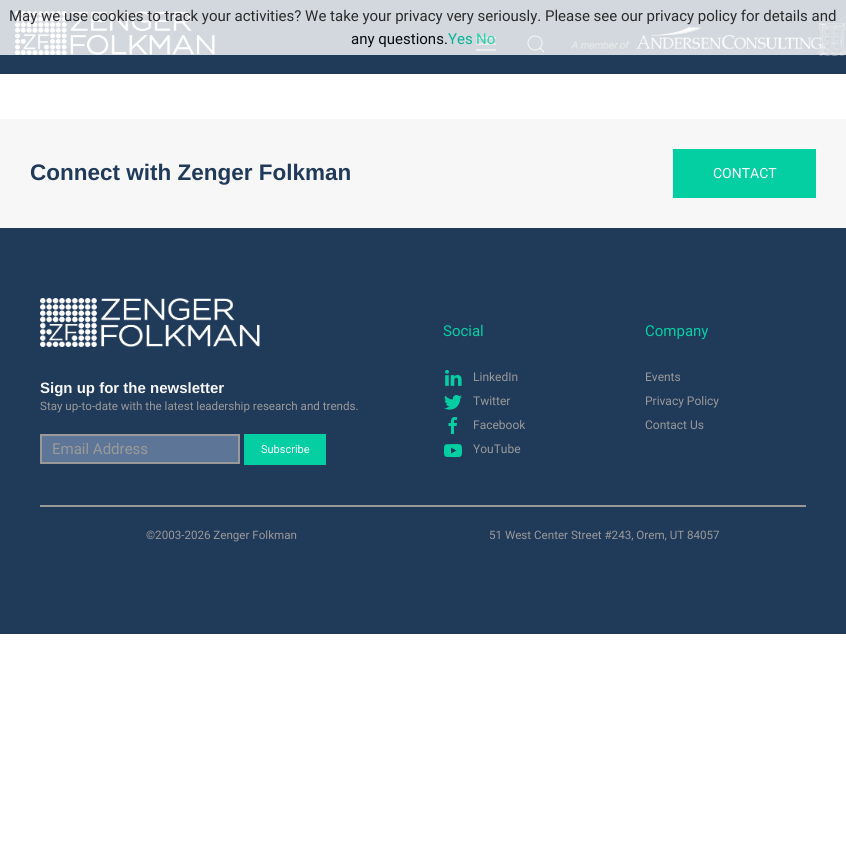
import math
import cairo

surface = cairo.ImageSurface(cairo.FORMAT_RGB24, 846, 844)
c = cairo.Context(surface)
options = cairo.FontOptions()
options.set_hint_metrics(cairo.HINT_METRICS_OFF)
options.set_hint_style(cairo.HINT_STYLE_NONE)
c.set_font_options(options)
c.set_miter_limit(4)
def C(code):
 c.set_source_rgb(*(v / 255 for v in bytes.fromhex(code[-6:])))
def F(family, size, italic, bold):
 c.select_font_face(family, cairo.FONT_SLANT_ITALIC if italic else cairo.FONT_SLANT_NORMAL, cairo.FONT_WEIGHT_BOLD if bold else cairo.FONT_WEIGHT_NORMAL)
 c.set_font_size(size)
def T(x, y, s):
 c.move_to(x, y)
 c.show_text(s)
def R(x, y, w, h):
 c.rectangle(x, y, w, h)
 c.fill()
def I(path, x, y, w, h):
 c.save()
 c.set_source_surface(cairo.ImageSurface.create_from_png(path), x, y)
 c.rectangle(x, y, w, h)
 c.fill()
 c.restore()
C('ffffff')
c.paint()
C('203a5a')
R(0,55,846,19)
C('d2d8de')
R(0,0,846,55)
I('1.png',15,11,200,44)
C('ebebeb')
R(476,43,20,2)
R(476,37,20,2)
R(476,49,20,2)
c.arc(535,43,7,0,2 * math.pi)
C('f2f3f5')
c.set_line_width(1.1)
c.stroke()
c.new_path()
c.move_to(540,48)
c.line_to(544,52)
c.close_path()
c.set_source_rgba(1,1,1,0.7)
c.stroke()
I('2.png',571,23,275,33)
F('Roboto',15,0,0)
C('2b2c2d')
T(9,21,'May we use cookies to track your activities? We take your privacy very seriously. Please see our privacy policy for details and')
C('060c12')
T(351,44,'any questions.')
C('09b194')
T(448,44,'Yes')
C('2ed2af')
T(476,44,'No')
C('f7f7f8')
R(0,119,846,109)
F('Liberation Sans',22.5,0,1)
C('203a5a')
T(30,180,'Connect with Zenger Folkman')
C('03cfa2')
R(673,149,143,49)
F('Roboto',14,0,0)
C('ffffff')
T(713,178,'CONTACT')
C('203a5a')
R(0,228,846,406)
I('3.png',40,298,220,49)
F('Liberation Sans',15,0,1)
C('f7f7f8')
T(40,393,'Sign up for the newsletter')
F('Roboto',11.6,0,0)
C('999999')
T(40,410,'Stay up-to-date with the latest leadership research and trends.')
C('5d7697')
c.rectangle(41,435,198,28)
c.fill_preserve()
C('999999')
c.set_line_width(2)
c.stroke()
F('Roboto',15,0,0)
T(52,454,'Email Address')
C('03cfa2')
R(244,434,82,31)
F('Roboto',11,0,0)
C('ffffff')
T(261,453,'Subscribe')
F('Roboto',15,0,0)
C('03cfa2')
T(443,336,'Social')
I('4.png',445,370,17,16)
F('Roboto',12,0,0)
C('999999')
T(473,381,'LinkedIn')
I('5.png',444,395,18,15)
T(473,405,'Twitter')
I('6.png',448,417,9,17)
T(473,429,'Facebook')
I('7.png',444,444,18,14)
T(473,453,'YouTube')
F('Roboto',15,0,0)
C('03cfa2')
T(645,336,'Company')
F('Roboto',12,0,0)
C('999999')
T(645,381,'Events')
T(645,405,'Privacy Policy')
T(645,429,'Contact Us')
R(40,505,766,2)
F('Roboto',11.6,0,0)
T(146,539,'©2003-2026 Zenger Folkman')
T(489,539,'51 West Center Street #243, Orem, UT 84057')
surface.write_to_png('o.png')
